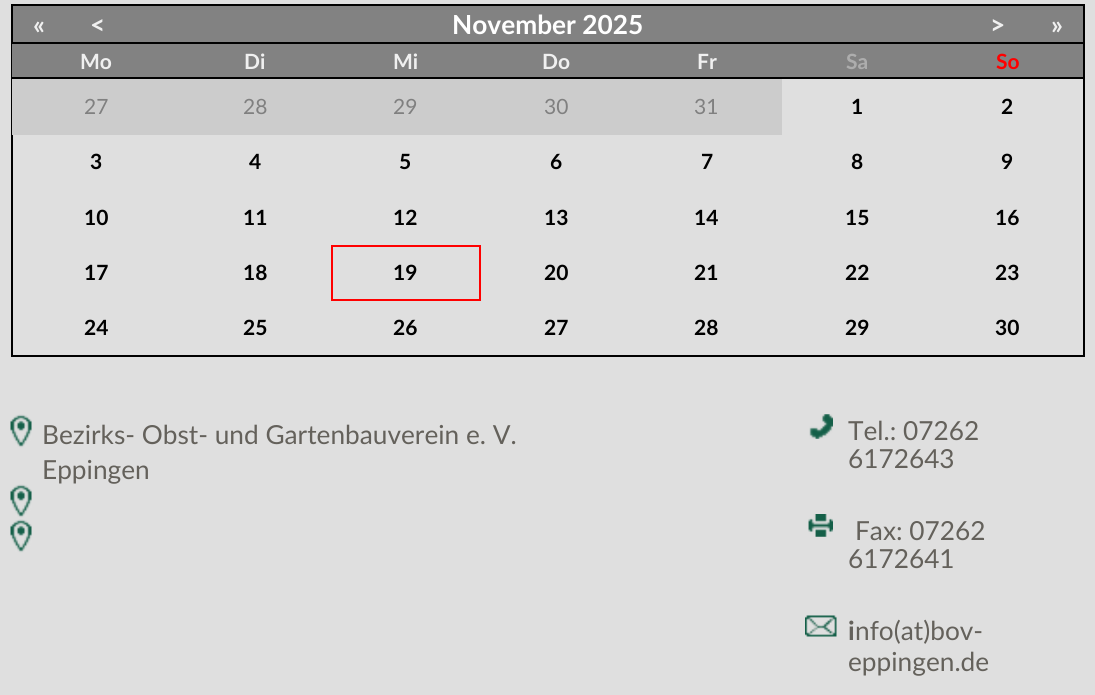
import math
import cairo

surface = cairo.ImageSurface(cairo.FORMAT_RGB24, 1095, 695)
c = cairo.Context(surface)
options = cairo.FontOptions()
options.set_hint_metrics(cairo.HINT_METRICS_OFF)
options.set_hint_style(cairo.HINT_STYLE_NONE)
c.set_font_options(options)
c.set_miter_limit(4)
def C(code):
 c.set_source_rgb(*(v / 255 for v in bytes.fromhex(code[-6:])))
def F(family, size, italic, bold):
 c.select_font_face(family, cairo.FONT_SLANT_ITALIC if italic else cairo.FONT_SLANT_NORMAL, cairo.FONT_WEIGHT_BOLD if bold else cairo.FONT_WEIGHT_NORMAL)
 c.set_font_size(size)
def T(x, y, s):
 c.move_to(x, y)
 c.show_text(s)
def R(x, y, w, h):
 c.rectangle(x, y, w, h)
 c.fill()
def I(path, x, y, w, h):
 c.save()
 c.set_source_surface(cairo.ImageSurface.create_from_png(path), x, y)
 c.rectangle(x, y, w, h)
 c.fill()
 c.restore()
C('dfdfdf')
c.paint()
C('828282')
R(13,6,1070,36)
C('000000')
R(11,4,1074,2)
R(1083,4,2,38)
R(11,4,2,38)
F('Lato',26.25,0,1)
C('f0f0f0')
T(33,34,'«')
T(90,34,'<')
C('ffffff')
T(452,34,'November 2025')
C('f0f0f0')
T(990,34,'>')
T(1051,34,'»')
c.rectangle(12,43,1072,313)
C('000000')
c.stroke()
C('828282')
R(12,44,1071,33)
C('000000')
R(12,77,1071,2)
F('Lato',21,0,1)
C('f0f0f0')
T(80,69,'Mo')
T(244,69,'Di')
T(393,69,'Mi')
T(542,69,'Do')
T(697,69,'Fr')
C('adadad')
T(846,69,'Sa')
C('ff0000')
T(996,69,'So')
C('cccccc')
R(12,79,770,56)
F('Lato',21,0,0)
C('808080')
T(84,114,'27')
T(243,114,'28')
T(393,114,'29')
T(544,114,'30')
T(694,114,'31')
F('Lato',21,0,1)
C('000000')
T(851,114,'1')
T(1001,114,'2')
T(90,169,'3')
T(249,169,'4')
T(399,169,'5')
T(550,169,'6')
T(701,169,'7')
T(851,169,'8')
T(1001,169,'9')
T(84,225,'10')
T(243,225,'11')
T(393,225,'12')
T(544,225,'13')
T(694,225,'14')
T(845,225,'15')
T(995,225,'16')
T(84,280,'17')
T(243,280,'18')
c.rectangle(332,246,148,54)
C('ff0000')
c.stroke()
C('000000')
T(393,280,'19')
T(544,280,'20')
T(694,280,'21')
T(845,280,'22')
T(995,280,'23')
T(84,335,'24')
T(243,335,'25')
T(393,335,'26')
T(544,335,'27')
T(694,335,'28')
T(845,335,'29')
T(995,335,'30')
I('1.png',10,414,22,34)
F('Lato',26.25,0,0)
C('64615b')
T(42,444,'Bezirks- Obst- und Gartenbauverein e. V.')
T(42,479,'Eppingen')
I('1.png',10,484,22,34)
I('1.png',10,519,22,34)
I('2.png',809,414,24,25)
T(848,440,'Tel.: 07262')
T(848,468,'6172643')
I('3.png',808,514,25,23)
T(855,540,'Fax: 07262')
T(848,568,'6172641')
I('4.png',805,615,32,22)
F('Lato',26.25,0,1)
T(848,640,'i')
F('Lato',26.25,0,0)
T(855,640,'nfo(at)bov-')
T(848,671,'eppingen.de')
surface.write_to_png('o.png')
